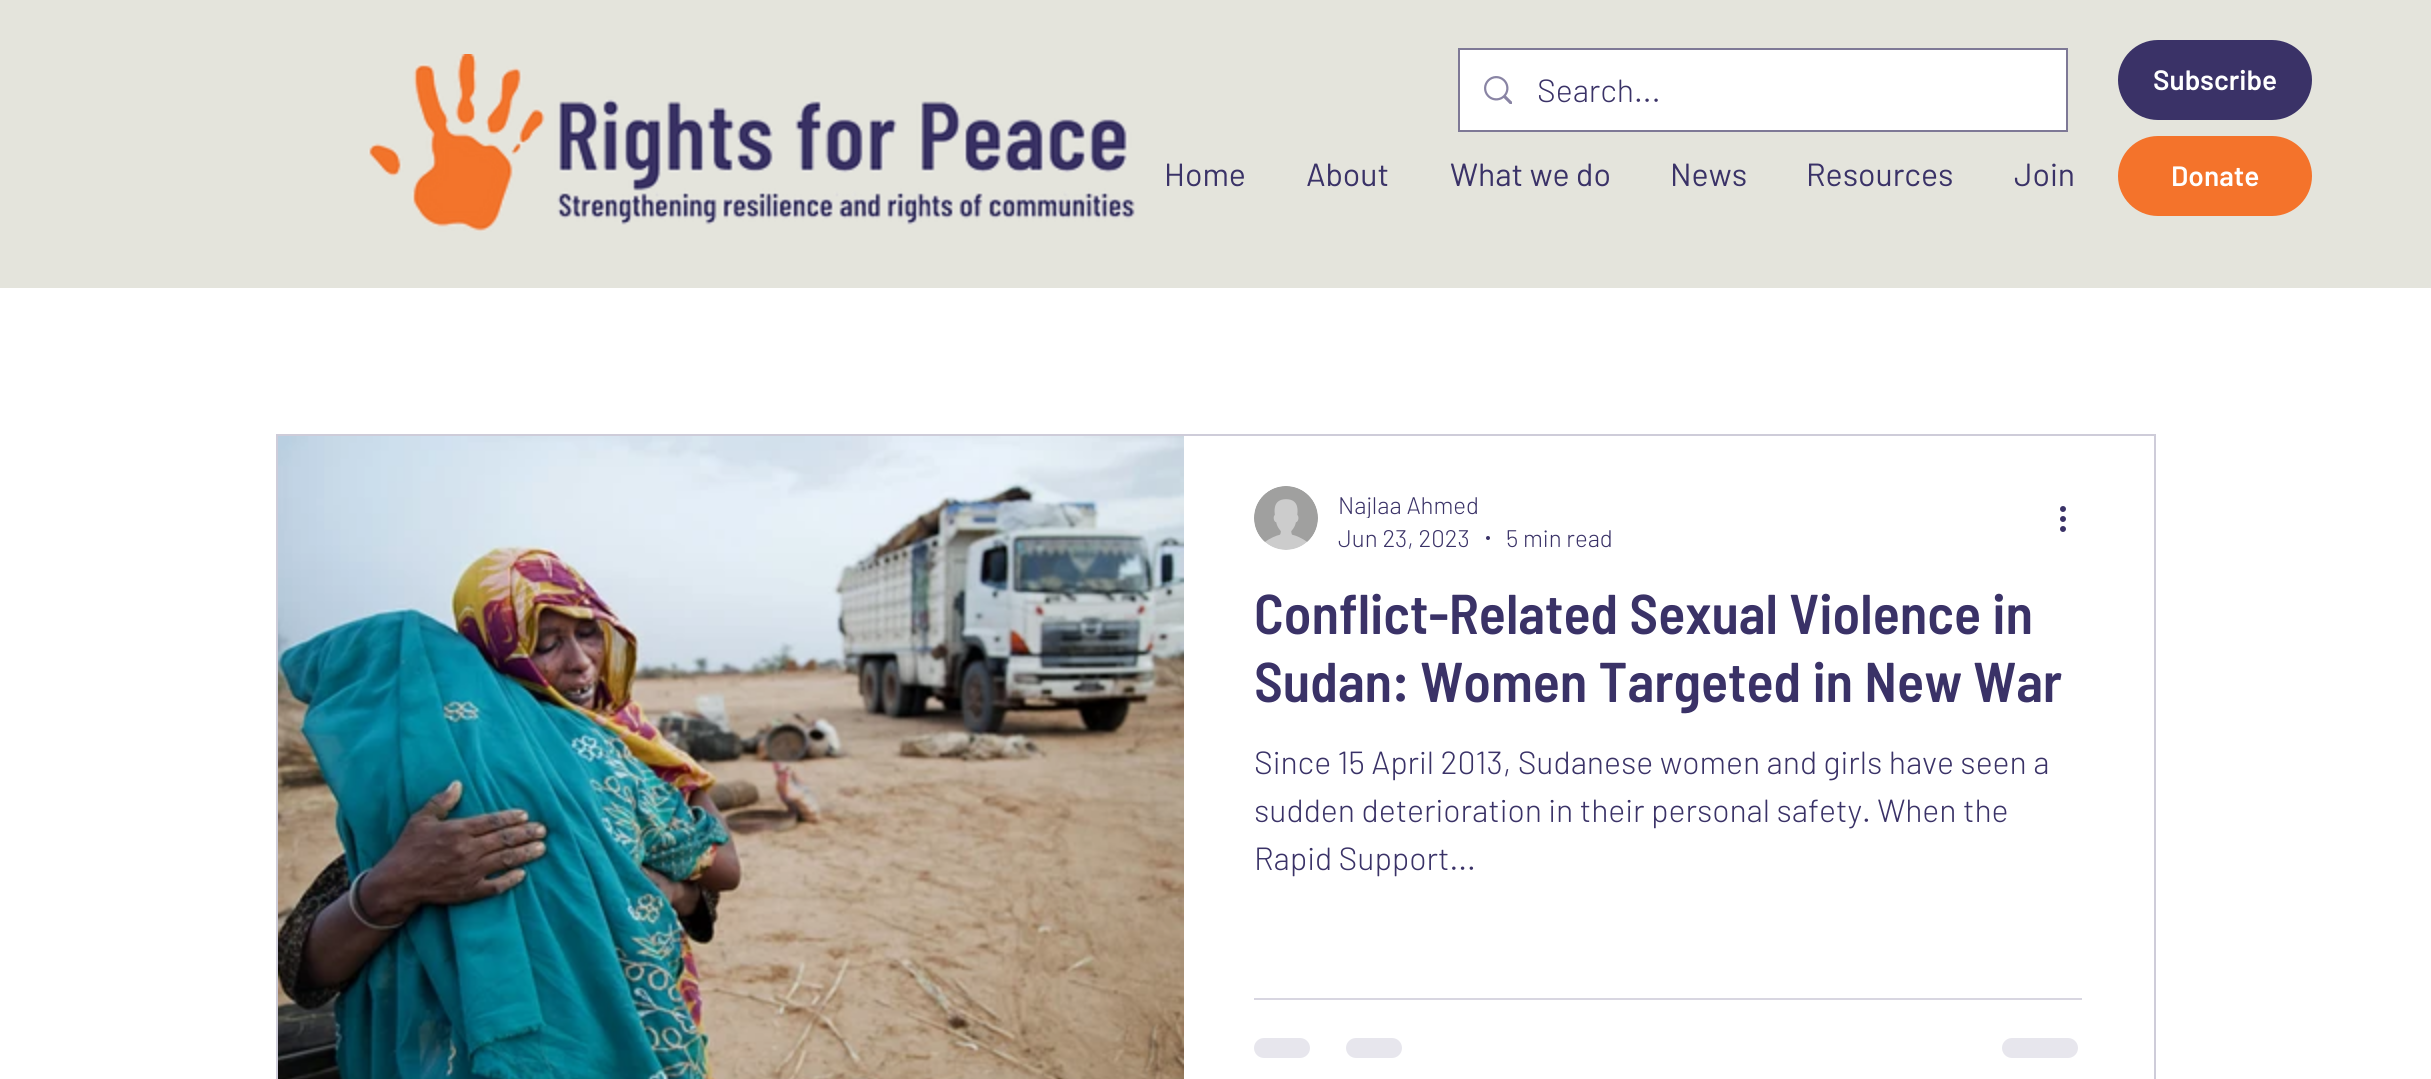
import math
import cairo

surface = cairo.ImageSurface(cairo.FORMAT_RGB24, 2431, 1079)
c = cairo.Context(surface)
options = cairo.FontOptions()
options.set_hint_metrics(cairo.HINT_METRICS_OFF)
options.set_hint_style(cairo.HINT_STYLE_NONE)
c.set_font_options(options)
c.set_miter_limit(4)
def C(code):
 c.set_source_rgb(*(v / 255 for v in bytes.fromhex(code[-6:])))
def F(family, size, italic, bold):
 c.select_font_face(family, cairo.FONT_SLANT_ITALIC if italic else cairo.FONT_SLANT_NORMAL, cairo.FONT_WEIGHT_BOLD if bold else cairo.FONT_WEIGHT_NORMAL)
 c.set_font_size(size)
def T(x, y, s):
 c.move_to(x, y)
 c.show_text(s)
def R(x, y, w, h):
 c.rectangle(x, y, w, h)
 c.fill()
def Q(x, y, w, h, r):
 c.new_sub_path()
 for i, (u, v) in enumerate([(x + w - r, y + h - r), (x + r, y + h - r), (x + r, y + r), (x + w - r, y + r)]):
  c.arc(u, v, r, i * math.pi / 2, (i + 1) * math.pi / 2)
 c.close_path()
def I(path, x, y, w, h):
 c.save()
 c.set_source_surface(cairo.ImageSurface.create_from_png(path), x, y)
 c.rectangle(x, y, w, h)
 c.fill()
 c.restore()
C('ffffff')
c.paint()
C('e4e4dc')
R(0,0,2431,288)
I('1.png',368,54,767,178)
c.rectangle(1459,49,608,82)
C('7e7996')
c.stroke()
C('ffffff')
R(1460,50,606,80)
I('2.png',1484,76,28,28)
F('Barlow Light',32,0,0)
C('3a3267')
T(1537,102,'Search...')
Q(2118,40,194,80,40)
c.fill()
F('Barlow SemiBold',28,0,0)
C('ffffff')
T(2153,90,'Subscribe')
F('Barlow',32,0,0)
C('3a3267')
T(1164,186,'Home')
T(1306,186,'About')
T(1450,186,'What we do')
T(1670,186,'News')
T(1806,186,'Resources')
T(2014,186,'Join')
C('f4732b')
Q(2118,136,194,80,40)
c.fill()
F('Barlow SemiBold',28,0,0)
C('ffffff')
T(2171,186,'Donate')
c.rectangle(277,435,1878,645)
C('ceccd9')
c.stroke()
I('3.png',278,436,906,643)
I('4.png',1254,486,64,64)
c.save()
c.rectangle(1338,490,140,28)
c.clip()
F('Barlow Light',24,0,0)
C('3a3267')
T(1338,514,'Najlaa Ahmed')
c.restore()
F('Barlow Light',24,0,0)
C('3a3267')
T(1338,547,'Jun 23, 2023')
c.new_path()
c.arc(1488,538,2,0,2 * math.pi)
c.fill()
T(1506,547,'5 min read')
I('5.png',2060,506,6,26)
F('Barlow Semi Condensed SemiBold',56,0,0)
T(1254,634,'Conflict-Related Sexual Violence in')
T(1254,702,'Sudan: Women Targeted in New War')
F('Barlow Light',32,0,0)
T(1254,774,'Since 15 April 2013, Sudanese women and girls have seen a')
T(1254,822,'sudden deterioration in their personal safety. When the')
T(1254,870,'Rapid Support...')
C('d8d6e1')
R(1254,998,828,2)
C('e7e6ed')
Q(1254,1038,56,20,10)
c.fill()
Q(1346,1038,56,20,10)
c.fill()
Q(2002,1038,76,20,10)
c.fill()
surface.write_to_png('o.png')
